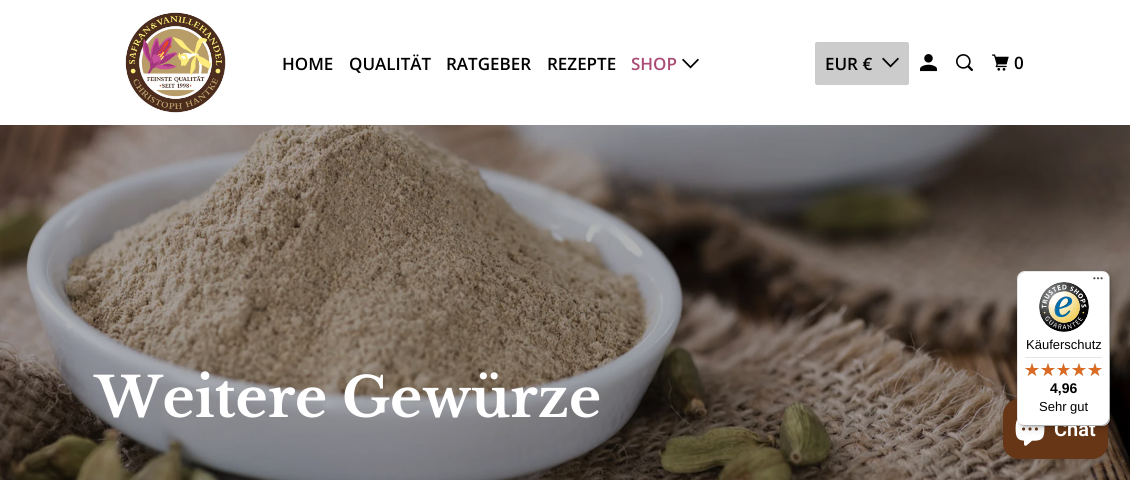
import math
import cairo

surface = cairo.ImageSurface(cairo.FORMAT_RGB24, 1130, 480)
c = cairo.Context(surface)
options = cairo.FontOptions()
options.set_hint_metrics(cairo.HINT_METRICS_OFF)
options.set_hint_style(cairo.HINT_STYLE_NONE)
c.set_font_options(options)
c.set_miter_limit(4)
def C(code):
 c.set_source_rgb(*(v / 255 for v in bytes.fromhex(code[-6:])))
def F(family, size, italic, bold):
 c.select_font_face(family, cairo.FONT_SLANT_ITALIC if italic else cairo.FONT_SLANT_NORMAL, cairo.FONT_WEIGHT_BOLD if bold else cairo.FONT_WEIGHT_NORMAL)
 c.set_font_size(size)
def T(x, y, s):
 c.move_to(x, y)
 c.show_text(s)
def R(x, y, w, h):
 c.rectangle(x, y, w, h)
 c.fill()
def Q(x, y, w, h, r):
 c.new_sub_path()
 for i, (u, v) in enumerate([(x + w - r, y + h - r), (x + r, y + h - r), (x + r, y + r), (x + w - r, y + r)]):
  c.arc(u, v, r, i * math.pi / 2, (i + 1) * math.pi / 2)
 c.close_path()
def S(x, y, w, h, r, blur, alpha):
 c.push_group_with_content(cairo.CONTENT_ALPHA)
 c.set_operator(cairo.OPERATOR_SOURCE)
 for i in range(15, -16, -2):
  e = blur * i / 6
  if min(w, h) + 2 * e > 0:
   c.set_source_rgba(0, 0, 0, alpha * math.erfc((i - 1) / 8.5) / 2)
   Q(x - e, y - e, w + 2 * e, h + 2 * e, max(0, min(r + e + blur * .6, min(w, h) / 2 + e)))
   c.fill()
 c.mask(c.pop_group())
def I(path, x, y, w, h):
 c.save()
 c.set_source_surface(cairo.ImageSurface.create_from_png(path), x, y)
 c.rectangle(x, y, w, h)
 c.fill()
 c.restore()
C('ffffff')
c.paint()
I('1.png',125,12,101,101)
F('Open Sans SemiBold',17,0,0)
C('000000')
T(282,70,'HOME')
T(349,70,'QUALITÄT')
T(446,70,'RATGEBER')
T(547,70,'REZEPTE')
C('ab4c76')
T(631,70,'SHOP')
I('2.png',682,58,17,11)
C('cccccc')
Q(815,42,94,43,2)
c.fill()
C('000000')
T(825,70,'EUR €')
I('3.png',882,57,17,11)
I('4.png',920,54,17,18)
I('5.png',956,54,17,17)
I('6.png',992,54,17,17)
T(1014,69,'0')
I('7.png',0,125,1130,355)
F('Libre Baskerville',55,0,1)
C('ffffff')
T(95,417,'Weitere Gewürze')
C('000000')
S(1003,399,105,60,16,2.5,.15)
C('663616')
Q(1003,399,105,60,16)
c.fill()
I('14.png',1015,419,30,27)
C('000000')
S(1020,274,93,155,8,4,.15)
S(1018,272,93,155,8,1,.15)
C('ffffff')
Q(1017,271,93,155,8)
c.fill()
c.set_source_rgba(0,0,0,0.1)
c.new_path()
c.move_to(1026,272)
c.line_to(1103,272)
c.curve_to(1105,272,1107,273,1109,275)
c.curve_to(1107,273,1105,271,1102,271)
c.line_to(1025,271)
c.curve_to(1021,271,1017,275,1017,279)
c.line_to(1017,418)
c.curve_to(1017,421,1019,423,1021,425)
c.curve_to(1019,423,1018,421,1018,419)
c.line_to(1018,280)
c.curve_to(1018,276,1022,272,1026,272)
c.close_path()
c.fill()
F('Roboto SemiBold',20,0,0)
C('ffffff')
T(1054,436,'Chat')
c.set_source_rgba(0,0,0,0.2)
c.new_path()
c.move_to(1018,422)
c.curve_to(1020,424,1022,426,1025,426)
c.line_to(1102,426)
c.curve_to(1106,426,1110,422,1110,418)
c.line_to(1110,279)
c.curve_to(1110,276,1108,274,1106,272)
c.curve_to(1108,274,1109,276,1109,278)
c.line_to(1109,417)
c.curve_to(1109,421,1105,425,1101,425)
c.line_to(1024,425)
c.curve_to(1022,425,1020,424,1018,422)
c.close_path()
c.fill()
c.set_source_rgba(0.196,0.196,0.196,0.2)
c.new_path()
c.move_to(1019,423)
c.curve_to(1020,425,1023,426,1025,426)
c.line_to(1102,426)
c.curve_to(1106,426,1110,422,1110,418)
c.line_to(1110,279)
c.curve_to(1110,277,1109,274,1107,273)
c.curve_to(1108,274,1109,276,1109,278)
c.line_to(1109,417)
c.curve_to(1109,422,1106,425,1101,425)
c.line_to(1024,425)
c.curve_to(1022,425,1020,424,1019,423)
c.close_path()
c.fill()
I('8.png',1093,277,10,3)
c.set_source_rgba(1,1,1,0.3)
c.new_path()
c.move_to(1102,426)
c.curve_to(1106.5,426,1110,422.5,1110,418)
c.curve_to(1110,422,1106,426,1102,426)
c.close_path()
c.fill()
I('9.png',1039,282,50,50)
F('Liberation Sans',13,0,0)
C('000000')
T(1026,349,'Käuferschutz')
C('e5e5e5')
R(1025,357,77,1)
I('10.png',1025,363,14,13)
I('10.png',1041,363,14,13)
I('11.png',1057,363,13,13)
I('10.png',1072,363,14,13)
I('10.png',1088,363,14,13)
I('12.png',1025,363,14,13)
I('12.png',1041,363,14,13)
I('13.png',1057,363,13,13)
I('12.png',1072,363,14,13)
I('12.png',1088,363,14,13)
F('Liberation Sans',14,0,1)
C('000000')
T(1050,393,'4,96')
F('Liberation Sans',13,0,0)
T(1039,411,'Sehr gut')
surface.write_to_png('o.png')
